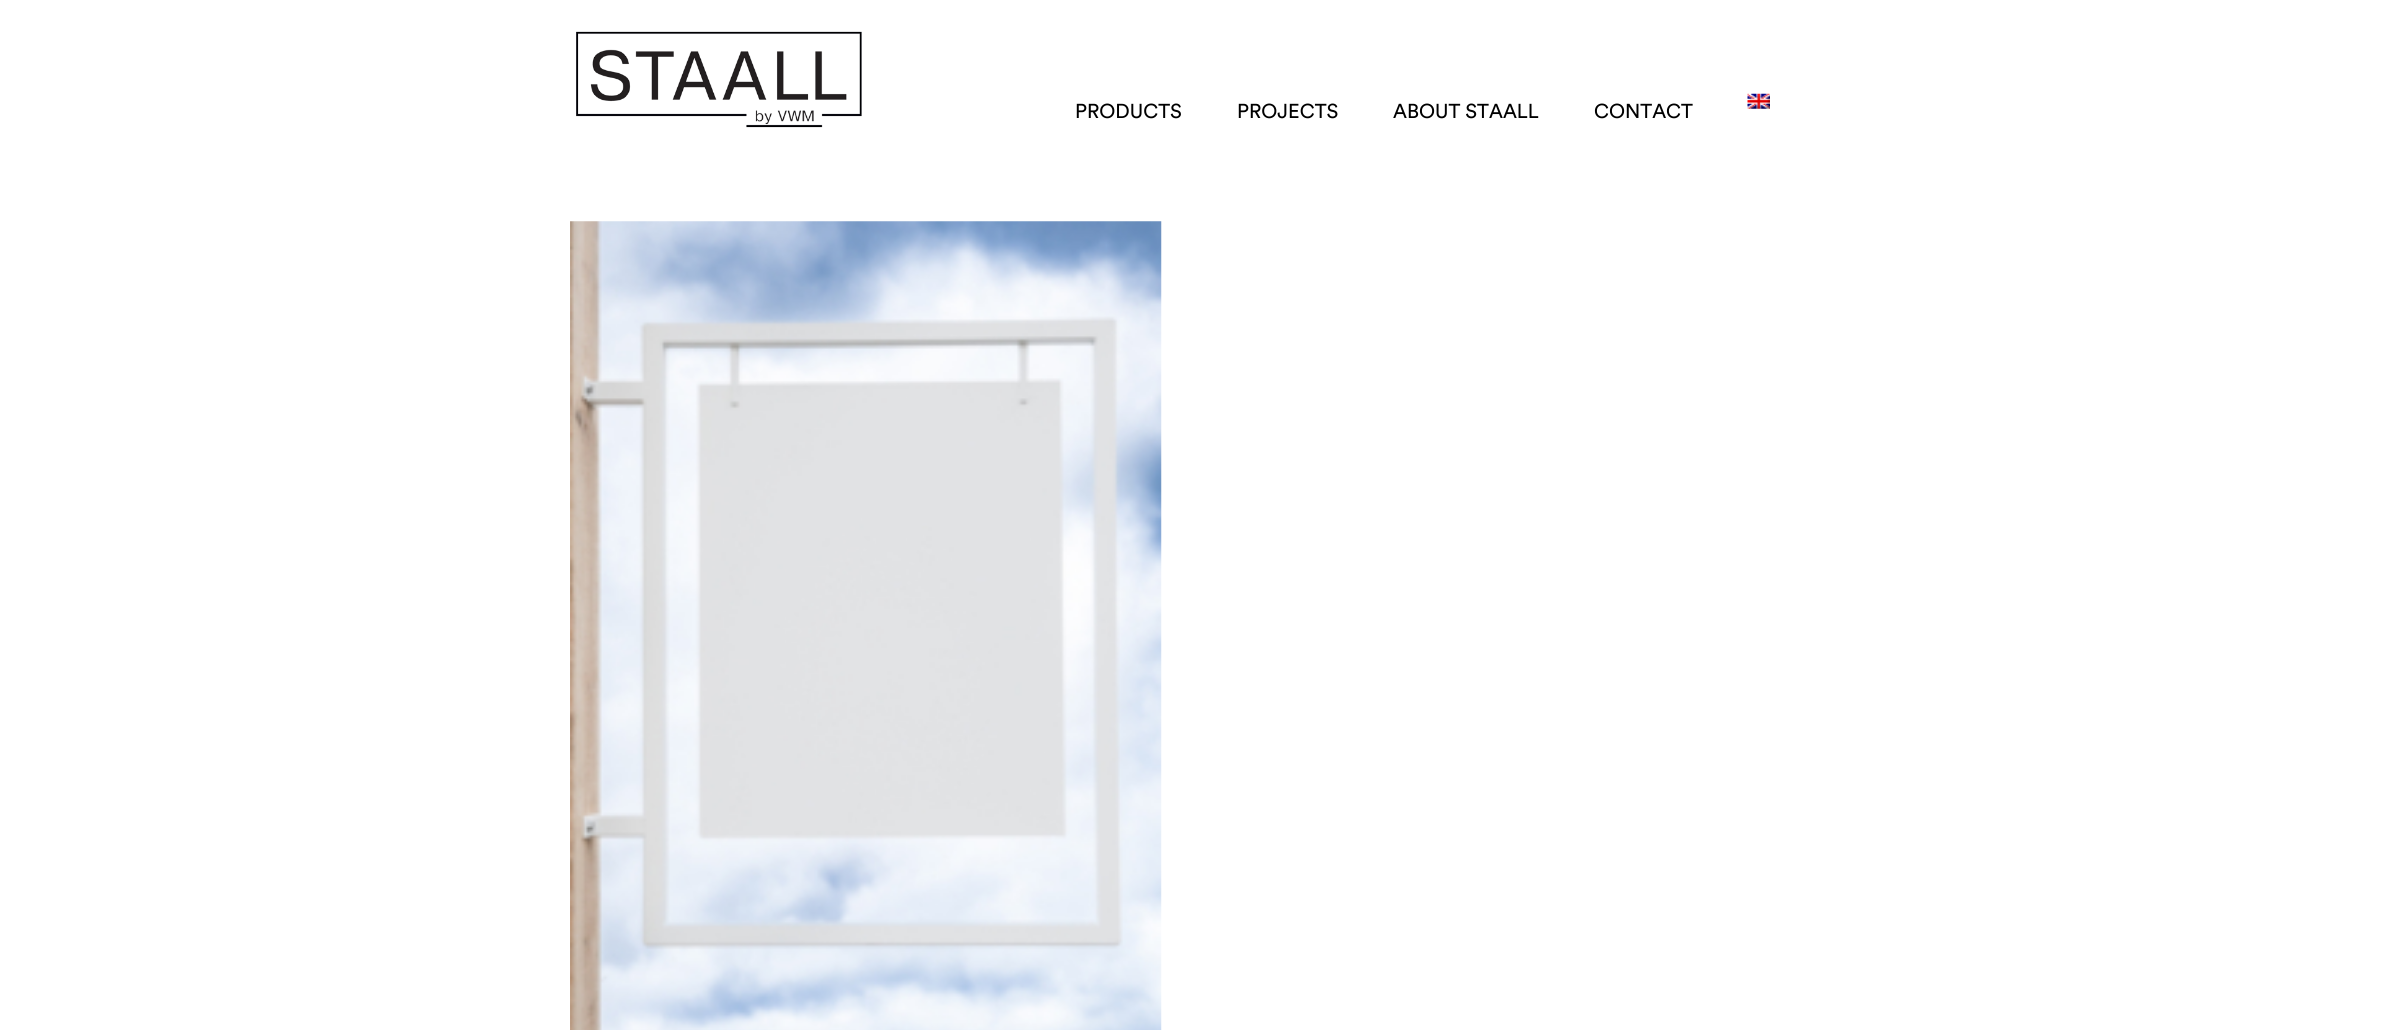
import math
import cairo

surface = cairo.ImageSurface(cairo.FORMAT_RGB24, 2390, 1030)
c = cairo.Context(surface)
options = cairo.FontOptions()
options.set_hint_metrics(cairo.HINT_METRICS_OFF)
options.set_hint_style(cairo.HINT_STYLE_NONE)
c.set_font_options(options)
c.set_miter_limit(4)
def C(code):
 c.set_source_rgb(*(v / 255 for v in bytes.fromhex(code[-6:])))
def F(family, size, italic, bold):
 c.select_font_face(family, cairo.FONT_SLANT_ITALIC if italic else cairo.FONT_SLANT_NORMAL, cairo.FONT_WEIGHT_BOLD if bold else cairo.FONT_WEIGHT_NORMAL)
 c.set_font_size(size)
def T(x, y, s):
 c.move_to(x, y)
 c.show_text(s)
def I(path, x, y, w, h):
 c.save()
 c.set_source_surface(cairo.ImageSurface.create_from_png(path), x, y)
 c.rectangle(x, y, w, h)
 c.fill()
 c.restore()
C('ffffff')
c.paint()
I('1.png',576,31,286,97)
I('2.png',1747,93,23,16)
F('Circular',20,0,0)
C('000000')
T(1075,118,'PRODUCTS')
T(1237,118,'PROJECTS')
T(1393,118,'ABOUT STAALL')
T(1594,118,'CONTACT')
I('3.png',570,221,592,809)
surface.write_to_png('o.png')
